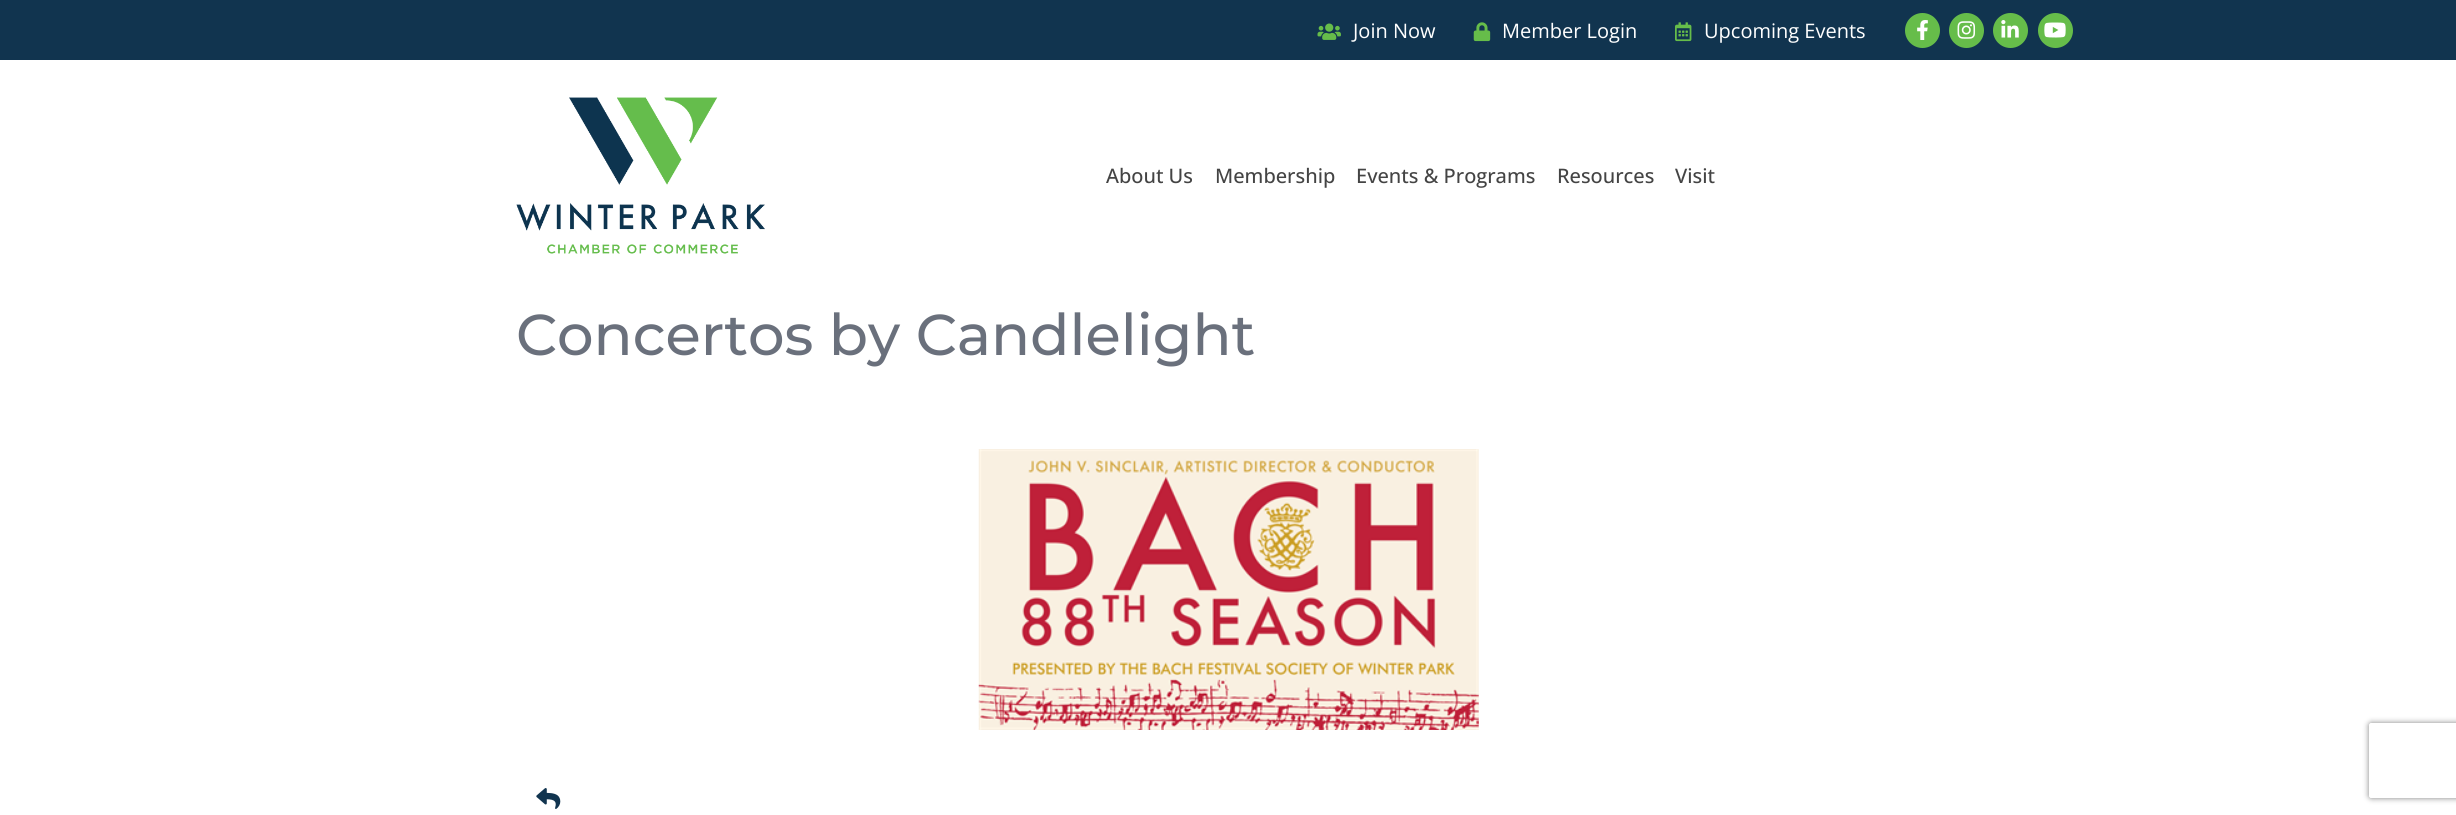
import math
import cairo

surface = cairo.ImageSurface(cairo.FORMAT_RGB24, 2456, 815)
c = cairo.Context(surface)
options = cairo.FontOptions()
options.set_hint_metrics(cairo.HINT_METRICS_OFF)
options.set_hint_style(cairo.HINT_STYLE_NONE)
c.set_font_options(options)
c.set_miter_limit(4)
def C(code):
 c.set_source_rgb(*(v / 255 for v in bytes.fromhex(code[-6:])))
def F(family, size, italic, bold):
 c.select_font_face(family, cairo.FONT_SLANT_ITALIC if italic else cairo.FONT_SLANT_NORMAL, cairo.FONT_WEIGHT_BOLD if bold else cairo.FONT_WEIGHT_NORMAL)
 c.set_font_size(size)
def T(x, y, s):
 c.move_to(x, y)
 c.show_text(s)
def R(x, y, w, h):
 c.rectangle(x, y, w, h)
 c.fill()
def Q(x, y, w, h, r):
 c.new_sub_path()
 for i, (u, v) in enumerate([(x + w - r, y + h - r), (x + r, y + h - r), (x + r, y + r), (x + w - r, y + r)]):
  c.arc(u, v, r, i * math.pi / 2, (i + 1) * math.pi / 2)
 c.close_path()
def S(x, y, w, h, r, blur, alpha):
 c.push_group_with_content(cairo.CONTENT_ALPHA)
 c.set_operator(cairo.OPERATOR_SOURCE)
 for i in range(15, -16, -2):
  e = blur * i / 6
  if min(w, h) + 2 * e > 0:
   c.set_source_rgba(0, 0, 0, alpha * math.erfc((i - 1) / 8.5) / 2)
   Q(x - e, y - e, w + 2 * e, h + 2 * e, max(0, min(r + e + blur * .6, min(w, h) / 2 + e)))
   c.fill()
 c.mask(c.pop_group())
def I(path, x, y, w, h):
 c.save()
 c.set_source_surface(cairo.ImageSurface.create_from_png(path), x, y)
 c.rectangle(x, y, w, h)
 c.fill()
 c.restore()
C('ffffff')
c.paint()
C('11344f')
R(0,0,2456,60)
I('1.png',1317,23,24,17)
F('Open Sans',20,0,0)
C('ffffff')
T(1353,38,'Join Now')
I('2.png',1473,22,18,20)
T(1502,38,'Member Login')
I('3.png',1675,22,17,20)
T(1704,38,'Upcoming Events')
C('66bd4a')
c.new_path()
c.arc(1922.5,30.5,17.5,0,2 * math.pi)
c.fill()
I('4.png',1917,20,11,20)
c.arc(1966.5,30.5,17.5,0,2 * math.pi)
c.fill()
I('5.png',1957,21,19,18)
c.arc(2010.5,30.5,17.5,0,2 * math.pi)
c.fill()
I('6.png',2001,20,18,18)
c.arc(2055.5,30.5,17.5,0,2 * math.pi)
c.fill()
I('7.png',2044,22,22,16)
I('8.png',516,97,249,157)
F('Open Sans Medium',20,0,0)
C('444444')
T(1106,183,'About Us')
T(1215,183,'Membership')
T(1356,183,'Events & Programs')
T(1557,183,'Resources')
T(1675,183,'Visit')
F('Montserrat Thin',57.5,0,0)
C('6a707c')
T(516,355,'Concertos by Candlelight')
I('9.png',978,449,501,281)
I('10.png',536,788,25,21)
c.save()
c.set_fill_rule(cairo.FILL_RULE_EVEN_ODD)
c.new_path()
c.move_to(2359,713)
c.line_to(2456,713)
c.line_to(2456,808)
c.line_to(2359,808)
c.close_path()
c.move_to(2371.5,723)
c.line_to(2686.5,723)
c.curve_to(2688,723,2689,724,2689,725.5)
c.line_to(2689,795.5)
c.curve_to(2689,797,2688,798,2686.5,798)
c.line_to(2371.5,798)
c.curve_to(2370,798,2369,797,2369,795.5)
c.line_to(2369,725.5)
c.curve_to(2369,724,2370,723,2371.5,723)
c.close_path()
c.clip()
C('808080')
S(2369,723,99,75,2.5,3,1)
c.restore()
surface.write_to_png('o.png')
